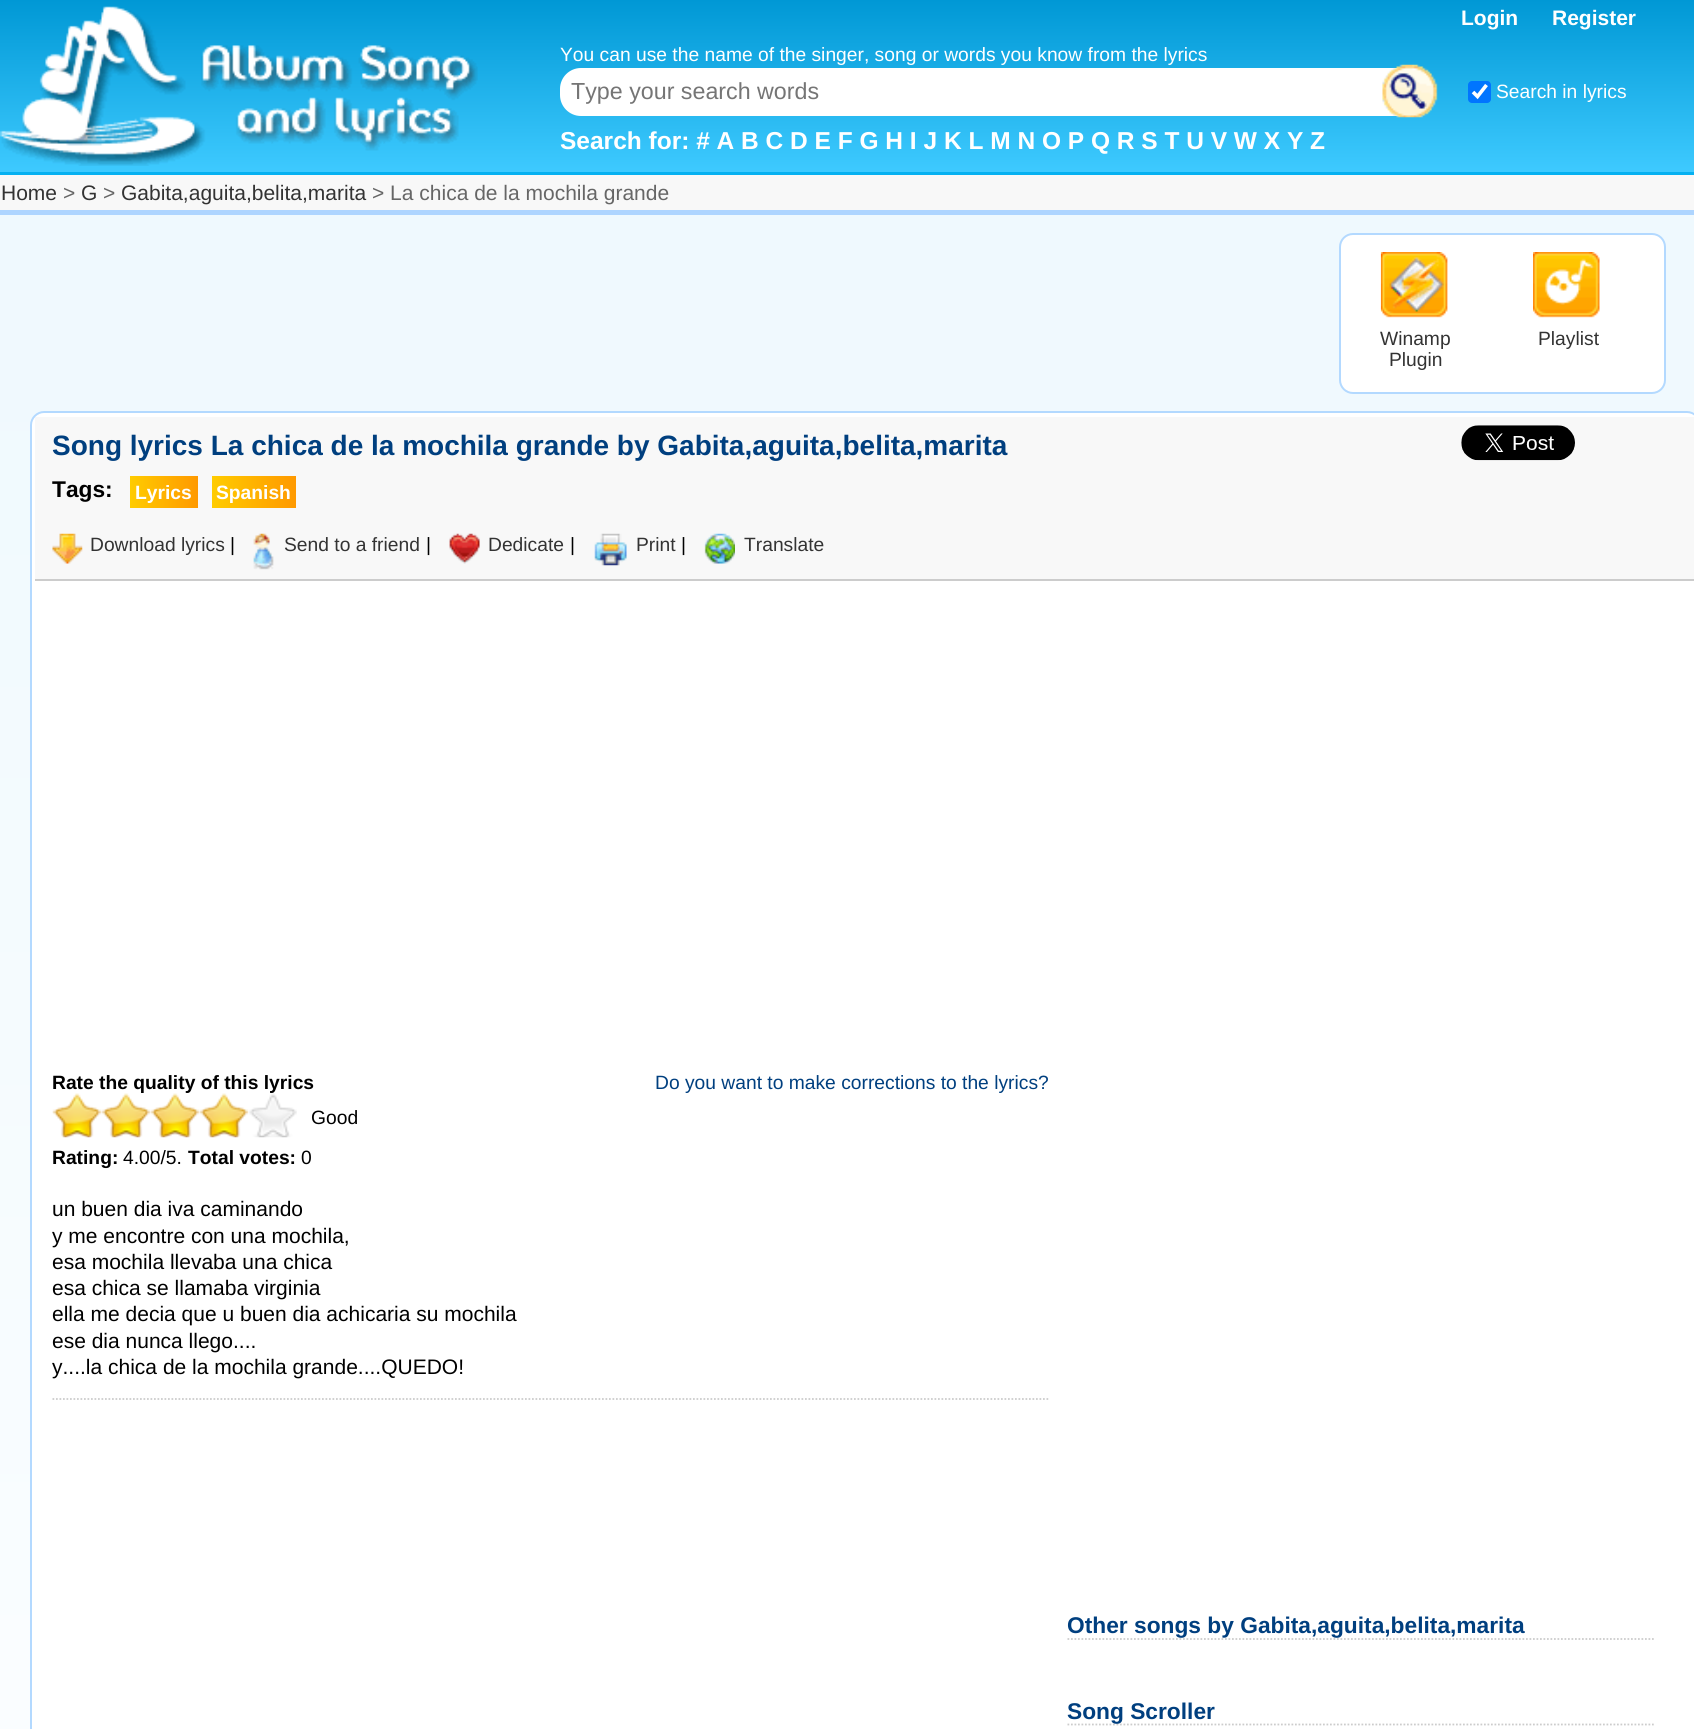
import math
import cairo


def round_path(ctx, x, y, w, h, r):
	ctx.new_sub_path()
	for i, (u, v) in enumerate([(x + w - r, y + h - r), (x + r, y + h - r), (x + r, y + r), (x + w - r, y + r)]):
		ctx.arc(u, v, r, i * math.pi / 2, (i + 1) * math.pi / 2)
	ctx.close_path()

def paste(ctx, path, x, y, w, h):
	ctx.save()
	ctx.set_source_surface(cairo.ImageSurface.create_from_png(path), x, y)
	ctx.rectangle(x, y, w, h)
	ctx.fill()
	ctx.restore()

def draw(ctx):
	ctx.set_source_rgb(1, 1, 1)
	ctx.paint()
	gradient = cairo.LinearGradient(847, 0, 847, 172)
	gradient.add_color_stop_rgba(0, 0, 0.596, 0.835, 1)
	gradient.add_color_stop_rgba(1, 0.243, 0.792, 1, 1)
	ctx.set_source(gradient)
	ctx.rectangle(0, 0, 1694, 172)
	ctx.fill()
	ctx.set_source_rgb(0.027, 0.694, 0.945)
	ctx.rectangle(0, 172, 1694, 3)
	ctx.fill()
	paste(ctx, 'media/1.png', 0, 6, 478, 160)
	ctx.select_font_face('Liberation Sans', cairo.FONT_SLANT_NORMAL, cairo.FONT_WEIGHT_BOLD)
	ctx.set_font_size(21)
	ctx.set_source_rgb(1, 1, 1)
	ctx.move_to(1461, 25)
	ctx.show_text('Login')
	ctx.move_to(1552, 25)
	ctx.show_text('Register')
	ctx.select_font_face('Liberation Sans')
	ctx.set_font_size(19.25)
	ctx.move_to(560, 61)
	ctx.show_text('You can use the name of the singer, song or words you know from the lyrics')
	round_path(ctx, 561, 69, 871, 46, 20)
	ctx.fill_preserve()
	ctx.stroke()
	ctx.set_font_size(23.25)
	ctx.set_source_rgb(0.459, 0.459, 0.459)
	ctx.move_to(571, 99)
	ctx.show_text('Type your search words')
	paste(ctx, 'media/2.png', 1382, 64, 56, 54)
	ctx.set_source_rgb(0, 0.459, 1)
	round_path(ctx, 1468, 81, 23, 22, 4)
	ctx.fill()
	ctx.new_path()
	ctx.move_to(1473, 92)
	ctx.line_to(1477.5, 96.5)
	ctx.line_to(1486.5, 85)
	ctx.set_source_rgb(1, 1, 1)
	ctx.set_line_width(3.6)
	ctx.stroke()
	ctx.set_font_size(19.25)
	ctx.move_to(1496, 98)
	ctx.show_text('Search in lyrics')
	ctx.select_font_face('Liberation Sans', cairo.FONT_SLANT_NORMAL, cairo.FONT_WEIGHT_BOLD)
	ctx.set_font_size(24.5)
	ctx.move_to(560, 149)
	ctx.show_text('Search for: # A B C D E F G H I J K L M N O P Q R S T U V W X Y Z')
	ctx.set_source_rgb(0.969, 0.969, 0.969)
	ctx.rectangle(0, 175, 1694, 35)
	ctx.fill()
	ctx.set_source_rgb(0.682, 0.835, 1)
	ctx.rectangle(0, 210, 1694, 5)
	ctx.fill()
	ctx.select_font_face('Liberation Sans')
	ctx.set_font_size(21)
	ctx.set_source_rgb(0.2, 0.2, 0.2)
	ctx.move_to(1, 200)
	ctx.show_text('Home')
	ctx.set_source_rgb(0.4, 0.4, 0.4)
	ctx.move_to(63, 200)
	ctx.show_text('>')
	ctx.set_source_rgb(0.2, 0.2, 0.2)
	ctx.move_to(81, 200)
	ctx.show_text('G')
	ctx.set_source_rgb(0.4, 0.4, 0.4)
	ctx.move_to(103, 200)
	ctx.show_text('>')
	ctx.set_source_rgb(0.2, 0.2, 0.2)
	ctx.move_to(121, 200)
	ctx.show_text('Gabita,aguita,belita,marita')
	ctx.set_source_rgb(0.4, 0.4, 0.4)
	ctx.move_to(372, 200)
	ctx.show_text('> La chica de la mochila grande')
	gradient = cairo.LinearGradient(860, 215, 860, 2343)
	gradient.add_color_stop_rgba(0, 0.937, 0.976, 0.996, 1)
	gradient.add_color_stop_rgba(1, 1, 1, 1, 1)
	ctx.set_source(gradient)
	ctx.rectangle(0, 215, 1694, 1514)
	ctx.fill()
	ctx.set_source_rgb(1, 1, 1)
	round_path(ctx, 1340, 234, 325, 159, 13)
	ctx.fill_preserve()
	ctx.set_source_rgb(0.702, 0.851, 1)
	ctx.set_line_width(2)
	ctx.stroke()
	paste(ctx, 'media/3.png', 1380, 252, 68, 66)
	ctx.set_font_size(19.25)
	ctx.set_source_rgb(0.2, 0.2, 0.2)
	ctx.move_to(1380, 345)
	ctx.show_text('Winamp')
	ctx.move_to(1389, 366)
	ctx.show_text('Plugin')
	paste(ctx, 'media/4.png', 1533, 252, 67, 66)
	ctx.move_to(1538, 345)
	ctx.show_text('Playlist')
	ctx.set_source_rgb(1, 1, 1)
	ctx.new_path()
	ctx.move_to(44, 412)
	ctx.line_to(1687, 412)
	ctx.curve_to(1694, 412, 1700, 418, 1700, 425)
	ctx.line_to(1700, 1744)
	ctx.line_to(31, 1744)
	ctx.line_to(31, 425)
	ctx.curve_to(31, 418, 37, 412, 44, 412)
	ctx.close_path()
	ctx.fill_preserve()
	ctx.set_source_rgb(0.702, 0.851, 1)
	ctx.stroke()
	ctx.set_source_rgb(0.969, 0.969, 0.969)
	ctx.rectangle(35, 417, 1659, 162)
	ctx.fill()
	ctx.set_source_rgb(0.8, 0.8, 0.8)
	ctx.rectangle(35, 579, 1659, 2)
	ctx.fill()
	ctx.select_font_face('Liberation Sans', cairo.FONT_SLANT_NORMAL, cairo.FONT_WEIGHT_BOLD)
	ctx.set_font_size(28)
	ctx.set_source_rgb(0, 0.247, 0.498)
	ctx.move_to(52, 455)
	ctx.show_text('Song lyrics La chica de la mochila grande by Gabita,aguita,belita,marita')
	ctx.set_font_size(22.75)
	ctx.set_source_rgb(0, 0, 0)
	ctx.move_to(52, 497)
	ctx.show_text('Tags:')
	gradient = cairo.LinearGradient(130, 492, 198, 492)
	gradient.add_color_stop_rgba(0, 1, 0.8, 0, 1)
	gradient.add_color_stop_rgba(1, 1, 0.6, 0, 1)
	ctx.set_source(gradient)
	ctx.rectangle(130, 476, 68, 32)
	ctx.fill()
	ctx.set_font_size(19.25)
	ctx.set_source_rgb(1, 1, 1)
	ctx.move_to(135, 499)
	ctx.show_text('Lyrics')
	gradient = cairo.LinearGradient(212, 492, 296, 492)
	gradient.add_color_stop_rgba(0, 1, 0.8, 0, 1)
	gradient.add_color_stop_rgba(1, 1, 0.6, 0, 1)
	ctx.set_source(gradient)
	ctx.rectangle(212, 476, 84, 32)
	ctx.fill()
	ctx.set_source_rgb(1, 1, 1)
	ctx.move_to(216, 499)
	ctx.show_text('Spanish')
	paste(ctx, 'media/5.png', 1461, 425, 114, 36)
	paste(ctx, 'media/6.png', 52, 533, 31, 31)
	ctx.select_font_face('Liberation Sans')
	ctx.set_source_rgb(0.2, 0.2, 0.2)
	ctx.move_to(90, 551)
	ctx.show_text('Download lyrics')
	ctx.set_source_rgb(0, 0, 0)
	ctx.move_to(230, 551)
	ctx.show_text('|')
	paste(ctx, 'media/7.png', 253, 533, 21, 37)
	ctx.set_source_rgb(0.2, 0.2, 0.2)
	ctx.move_to(284, 551)
	ctx.show_text('Send to a friend')
	ctx.set_source_rgb(0, 0, 0)
	ctx.move_to(426, 551)
	ctx.show_text('|')
	paste(ctx, 'media/8.png', 449, 533, 31, 31)
	ctx.set_source_rgb(0.2, 0.2, 0.2)
	ctx.move_to(488, 551)
	ctx.show_text('Dedicate')
	ctx.set_source_rgb(0, 0, 0)
	ctx.move_to(570, 551)
	ctx.show_text('|')
	paste(ctx, 'media/9.png', 594, 533, 33, 33)
	ctx.set_source_rgb(0.2, 0.2, 0.2)
	ctx.move_to(636, 551)
	ctx.show_text('Print')
	ctx.set_source_rgb(0, 0, 0)
	ctx.move_to(681, 551)
	ctx.show_text('|')
	paste(ctx, 'media/10.png', 704, 533, 31, 31)
	ctx.set_source_rgb(0.2, 0.2, 0.2)
	ctx.move_to(744, 551)
	ctx.show_text('Translate')
	ctx.select_font_face('Liberation Sans', cairo.FONT_SLANT_NORMAL, cairo.FONT_WEIGHT_BOLD)
	ctx.set_source_rgb(0, 0, 0)
	ctx.move_to(52, 1089)
	ctx.show_text('Rate the quality of this lyrics')
	paste(ctx, 'media/11.png', 52, 1093, 50, 45)
	paste(ctx, 'media/12.png', 101, 1093, 50, 45)
	paste(ctx, 'media/12.png', 150, 1093, 50, 45)
	paste(ctx, 'media/12.png', 199, 1093, 50, 45)
	paste(ctx, 'media/13.png', 249, 1093, 48, 45)
	ctx.select_font_face('Liberation Sans')
	ctx.move_to(311, 1124)
	ctx.show_text('Good')
	ctx.select_font_face('Liberation Sans', cairo.FONT_SLANT_NORMAL, cairo.FONT_WEIGHT_BOLD)
	ctx.move_to(52, 1164)
	ctx.show_text('Rating:')
	ctx.select_font_face('Liberation Sans')
	ctx.move_to(123, 1164)
	ctx.show_text('4.00/5.')
	ctx.select_font_face('Liberation Sans', cairo.FONT_SLANT_NORMAL, cairo.FONT_WEIGHT_BOLD)
	ctx.move_to(188, 1164)
	ctx.show_text('Total votes:')
	ctx.select_font_face('Liberation Sans')
	ctx.move_to(301, 1164)
	ctx.show_text('0')
	ctx.set_source_rgb(0, 0.247, 0.498)
	ctx.move_to(655, 1089)
	ctx.show_text('Do you want to make corrections to the lyrics?')
	ctx.new_path()
	ctx.move_to(52.5, 1399)
	ctx.line_to(1050, 1399)
	ctx.set_source_rgb(0.8, 0.8, 0.8)
	ctx.set_line_width(1.8)
	ctx.set_dash([1.75, 1.75])
	ctx.stroke()
	ctx.set_font_size(21)
	ctx.set_source_rgb(0, 0, 0)
	for x, y, s in [
		(52, 1216, 'un buen dia iva caminando'),
		(52, 1243, 'y me encontre con una mochila,'),
		(52, 1269, 'esa mochila llevaba una chica'),
		(52, 1295, 'esa chica se llamaba virginia'),
		(52, 1321, 'ella me decia que u buen dia achicaria su mochila'),
		(52, 1348, 'ese dia nunca llego....'),
		(52, 1374, 'y....la chica de la mochila grande....QUEDO!'),
	]:
		ctx.move_to(x, y)
		ctx.show_text(s)
	ctx.new_path()
	ctx.move_to(1067.5, 1639)
	ctx.line_to(1655.5, 1639)
	ctx.set_source_rgb(0.8, 0.8, 0.8)
	ctx.stroke()
	ctx.select_font_face('Liberation Sans', cairo.FONT_SLANT_NORMAL, cairo.FONT_WEIGHT_BOLD)
	ctx.set_font_size(22.75)
	ctx.set_source_rgb(0, 0.247, 0.498)
	ctx.move_to(1067, 1633)
	ctx.show_text('Other songs by Gabita,aguita,belita,marita')
	ctx.new_path()
	ctx.move_to(1067.5, 1724.5)
	ctx.line_to(1655.5, 1724.5)
	ctx.set_source_rgb(0.8, 0.8, 0.8)
	ctx.stroke()
	ctx.set_source_rgb(0, 0.247, 0.498)
	ctx.move_to(1067, 1719)
	ctx.show_text('Song Scroller')


surface = cairo.ImageSurface(cairo.FORMAT_RGB24, 1694, 1729)
ctx = cairo.Context(surface)
options = cairo.FontOptions()
options.set_hint_metrics(cairo.HINT_METRICS_OFF)
options.set_hint_style(cairo.HINT_STYLE_NONE)
ctx.set_font_options(options)
ctx.set_miter_limit(4)
draw(ctx)
surface.write_to_png('image.png')
